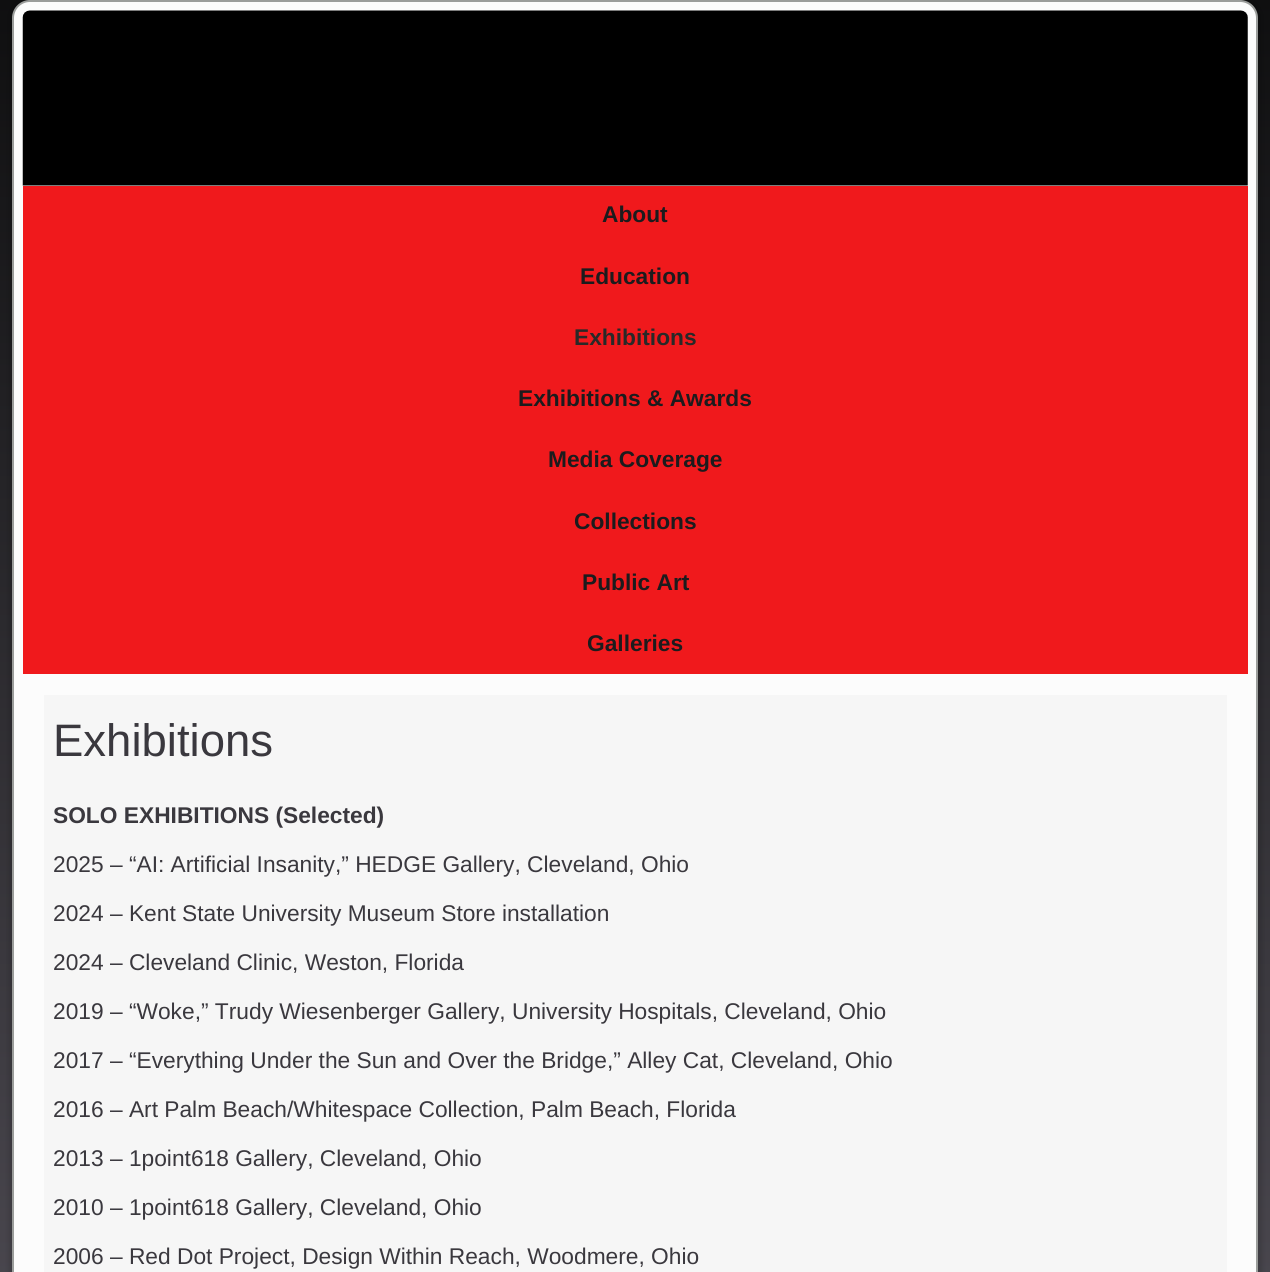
import math
import cairo


def round_path(ctx, x, y, w, h, r):
	ctx.new_sub_path()
	for i, (u, v) in enumerate([(x + w - r, y + h - r), (x + r, y + h - r), (x + r, y + r), (x + w - r, y + r)]):
		ctx.arc(u, v, r, i * math.pi / 2, (i + 1) * math.pi / 2)
	ctx.close_path()

def blur_box(ctx, x, y, w, h, r, blur, alpha):
	ctx.push_group_with_content(cairo.CONTENT_ALPHA)
	ctx.set_operator(cairo.OPERATOR_SOURCE)
	for i in range(15, -16, -2):
		e = blur * i / 6
		if min(w, h) + 2 * e > 0:
			ctx.set_source_rgba(0, 0, 0, alpha * math.erfc((i - 1) / 8.5) / 2)
			round_path(ctx, x - e, y - e, w + 2 * e, h + 2 * e, max(0, min(r + e + blur * .6, min(w, h) / 2 + e)))
			ctx.fill()
	ctx.mask(ctx.pop_group())

def paste(ctx, path, x, y, w, h):
	ctx.save()
	ctx.set_source_surface(cairo.ImageSurface.create_from_png(path), x, y)
	ctx.rectangle(x, y, w, h)
	ctx.fill()
	ctx.restore()

def draw(ctx):
	ctx.set_source_rgb(1, 1, 1)
	ctx.paint()
	gradient = cairo.LinearGradient(635, 0, 635, 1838)
	gradient.add_color_stop_rgba(0, 0.059, 0.059, 0.063, 1)
	gradient.add_color_stop_rgba(1, 0.384, 0.369, 0.408, 1)
	ctx.set_source(gradient)
	ctx.rectangle(0, 0, 1270, 1272)
	ctx.fill()
	ctx.set_source_rgb(0, 0, 0)
	blur_box(ctx, 9, -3, 1253, 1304, 21, 2.5, 0.15)
	ctx.set_source_rgb(0.988, 0.988, 0.988)
	round_path(ctx, 13, 1, 1244, 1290, 17)
	ctx.fill_preserve()
	ctx.set_source_rgb(0.608, 0.616, 0.608)
	ctx.stroke()
	paste(ctx, 'media/1.png', 22, 10, 1226, 176)
	ctx.set_source_rgb(0.941, 0.098, 0.11)
	ctx.rectangle(23, 186, 1225, 488)
	ctx.fill()
	ctx.select_font_face('Liberation Sans', cairo.FONT_SLANT_NORMAL, cairo.FONT_WEIGHT_BOLD)
	ctx.set_font_size(22.75)
	ctx.set_source_rgb(0.11, 0.106, 0.114)
	ctx.move_to(602, 222)
	ctx.show_text('About')
	ctx.move_to(580, 284)
	ctx.show_text('Education')
	ctx.set_source_rgb(0.157, 0.161, 0.157)
	ctx.move_to(574, 345)
	ctx.show_text('Exhibitions')
	ctx.set_source_rgb(0.11, 0.106, 0.114)
	for x, y, s in [
		(518, 406, 'Exhibitions & Awards'),
		(548, 467, 'Media Coverage'),
		(574, 529, 'Collections'),
		(582, 590, 'Public Art'),
		(587, 651, 'Galleries'),
	]:
		ctx.move_to(x, y)
		ctx.show_text(s)
	ctx.set_source_rgb(0.961, 0.961, 0.961)
	ctx.rectangle(44, 695, 1183, 577)
	ctx.fill()
	ctx.select_font_face('Liberation Sans')
	ctx.set_font_size(45.5)
	ctx.set_source_rgb(0.227, 0.22, 0.243)
	ctx.move_to(53, 756)
	ctx.show_text('Exhibitions')
	ctx.select_font_face('Liberation Sans', cairo.FONT_SLANT_NORMAL, cairo.FONT_WEIGHT_BOLD)
	ctx.set_font_size(22.75)
	ctx.move_to(53, 823)
	ctx.show_text('SOLO EXHIBITIONS (Selected)')
	ctx.select_font_face('Liberation Sans')
	for x, y, s in [
		(53, 872, '2025 – “AI: Artificial Insanity,” HEDGE Gallery, Cleveland, Ohio'),
		(53, 921, '2024 – Kent State University Museum Store installation'),
		(53, 970, '2024 – Cleveland Clinic, Weston, Florida'),
		(53, 1019, '2019 – “Woke,” Trudy Wiesenberger Gallery, University Hospitals, Cleveland, Ohio'),
		(53, 1068, '2017 – “Everything Under the Sun and Over the Bridge,” Alley Cat, Cleveland, Ohio'),
		(53, 1117, '2016 – Art Palm Beach/Whitespace Collection, Palm Beach, Florida'),
		(53, 1166, '2013 – 1point618 Gallery, Cleveland, Ohio'),
		(53, 1215, '2010 – 1point618 Gallery, Cleveland, Ohio'),
		(53, 1264, '2006 – Red Dot Project, Design Within Reach, Woodmere, Ohio'),
	]:
		ctx.move_to(x, y)
		ctx.show_text(s)


surface = cairo.ImageSurface(cairo.FORMAT_RGB24, 1270, 1272)
ctx = cairo.Context(surface)
options = cairo.FontOptions()
options.set_hint_metrics(cairo.HINT_METRICS_OFF)
options.set_hint_style(cairo.HINT_STYLE_NONE)
ctx.set_font_options(options)
ctx.set_miter_limit(4)
draw(ctx)
surface.write_to_png('image.png')
